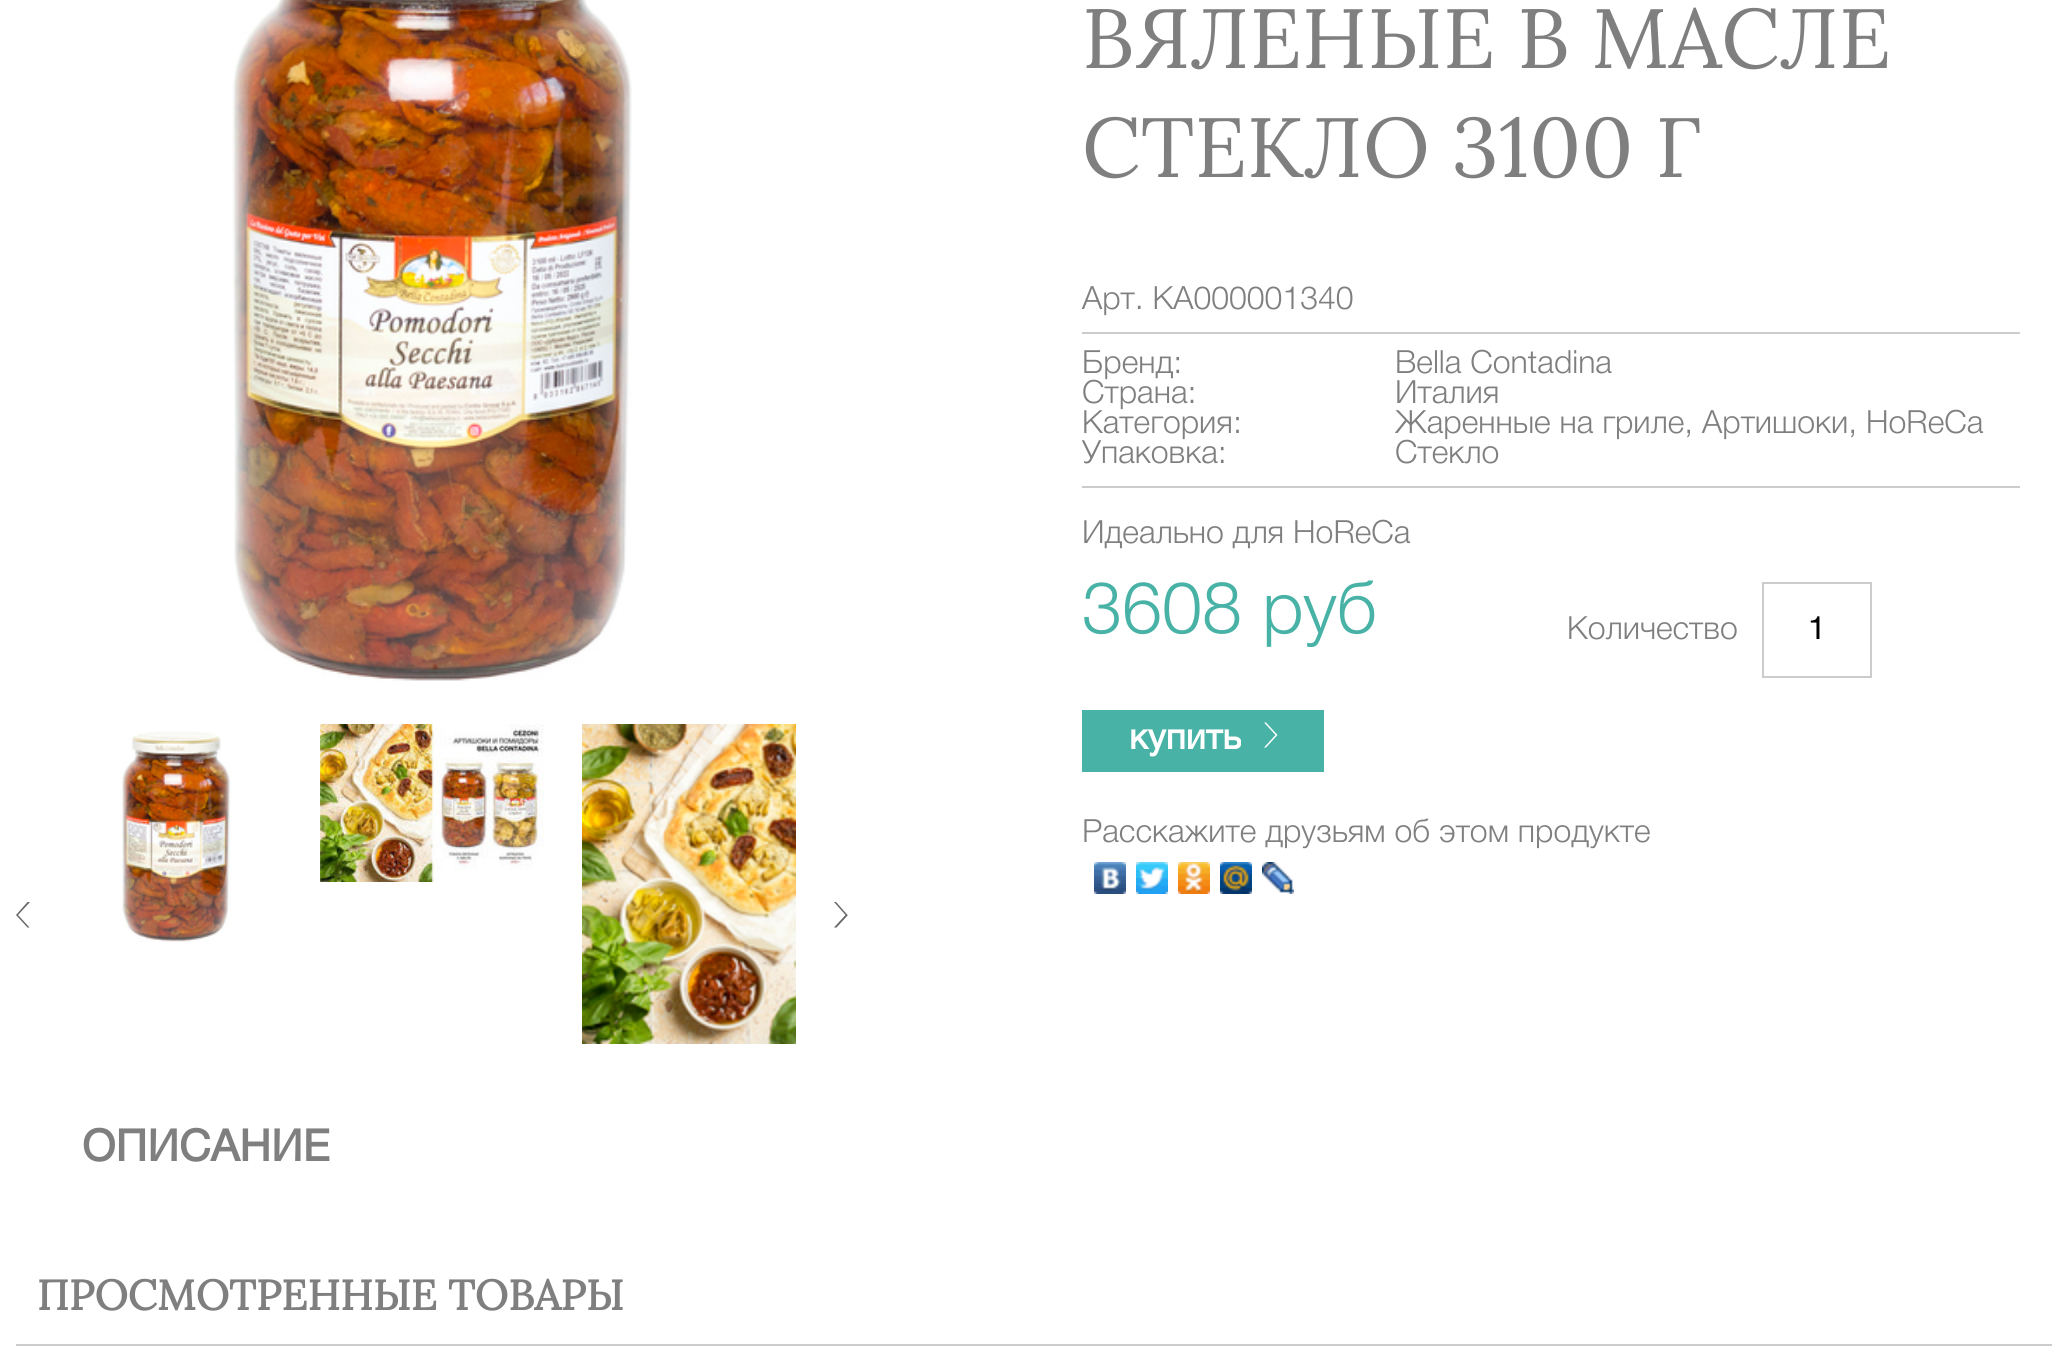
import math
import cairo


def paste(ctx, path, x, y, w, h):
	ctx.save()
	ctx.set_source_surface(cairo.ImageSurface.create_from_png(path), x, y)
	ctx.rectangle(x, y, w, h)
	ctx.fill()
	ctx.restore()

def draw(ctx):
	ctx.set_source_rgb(1, 1, 1)
	ctx.paint()
	ctx.select_font_face('Lora')
	ctx.set_font_size(84)
	ctx.set_source_rgb(0.498, 0.498, 0.498)
	ctx.move_to(1082, 68)
	ctx.show_text('ВЯЛЕНЫЕ В МАСЛЕ')
	ctx.move_to(1082, 177)
	ctx.show_text('СТЕКЛО 3100 Г')
	ctx.select_font_face('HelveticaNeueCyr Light')
	ctx.set_font_size(32)
	ctx.move_to(1082, 309)
	ctx.show_text('Арт. КА000001340')
	ctx.set_source_rgb(0.8, 0.8, 0.8)
	ctx.rectangle(1082, 332, 938, 2)
	ctx.fill()
	ctx.rectangle(1082, 486, 938, 2)
	ctx.fill()
	ctx.set_source_rgb(0.498, 0.498, 0.498)
	for x, y, s in [
		(1082, 373, 'Бренд:'),
		(1395, 373, 'Bella Contadina'),
		(1082, 403, 'Страна:'),
		(1395, 403, 'Италия'),
		(1082, 433, 'Категория:'),
		(1395, 433, 'Жаренные на гриле, Артишоки, HoReCa'),
		(1082, 463, 'Упаковка:'),
		(1395, 463, 'Стекло'),
		(1082, 543, 'Идеально для HoReCa'),
	]:
		ctx.move_to(x, y)
		ctx.show_text(s)
	ctx.set_font_size(72)
	ctx.set_source_rgb(0.278, 0.698, 0.647)
	ctx.move_to(1082, 633)
	ctx.show_text('3608 руб')
	ctx.set_font_size(32)
	ctx.set_source_rgb(0.498, 0.498, 0.498)
	ctx.move_to(1567, 639)
	ctx.show_text('Количество')
	ctx.rectangle(1763, 583, 108, 94)
	ctx.set_source_rgb(0.8, 0.8, 0.8)
	ctx.stroke()
	ctx.select_font_face('HelveticaNeueCyr')
	ctx.set_source_rgb(0, 0, 0)
	ctx.move_to(1808, 639)
	ctx.show_text('1')
	ctx.set_source_rgb(0.278, 0.698, 0.647)
	ctx.rectangle(1082, 710, 242, 62)
	ctx.fill()
	ctx.select_font_face('HelveticaNeueCyr', cairo.FONT_SLANT_NORMAL, cairo.FONT_WEIGHT_BOLD)
	ctx.set_font_size(36)
	ctx.set_source_rgb(1, 1, 1)
	ctx.move_to(1129, 749)
	ctx.show_text('купить')
	ctx.new_path()
	ctx.move_to(1266, 722.5)
	ctx.line_to(1277.5, 735)
	ctx.line_to(1275.5, 735)
	ctx.line_to(1264, 722.5)
	ctx.close_path()
	ctx.move_to(1275.5, 735)
	ctx.line_to(1264, 747.5)
	ctx.line_to(1266, 747.5)
	ctx.line_to(1277.5, 735)
	ctx.close_path()
	ctx.fill()
	ctx.select_font_face('HelveticaNeueCyr Light')
	ctx.set_font_size(32)
	ctx.set_source_rgb(0.498, 0.498, 0.498)
	ctx.move_to(1082, 842)
	ctx.show_text('Расскажите друзьям об этом продукте')
	paste(ctx, 'media/1.png', 1094, 862, 32, 32)
	paste(ctx, 'media/2.png', 1136, 862, 32, 32)
	paste(ctx, 'media/3.png', 1178, 862, 32, 32)
	paste(ctx, 'media/4.png', 1220, 862, 32, 32)
	paste(ctx, 'media/5.png', 1262, 862, 32, 32)
	paste(ctx, 'media/6.png', 232, 0, 400, 681)
	paste(ctx, 'media/7.png', 121, 731, 110, 211)
	paste(ctx, 'media/8.png', 320, 724, 224, 158)
	paste(ctx, 'media/9.png', 582, 724, 214, 320)
	ctx.set_source_rgb(0.4, 0.4, 0.4)
	ctx.new_path()
	ctx.move_to(27.5, 902)
	ctx.line_to(16, 915)
	ctx.line_to(18, 915)
	ctx.line_to(30, 902)
	ctx.close_path()
	ctx.move_to(18, 915)
	ctx.line_to(29.5, 927.5)
	ctx.line_to(27.5, 927.5)
	ctx.line_to(16, 915)
	ctx.close_path()
	ctx.fill()
	ctx.new_path()
	ctx.move_to(836, 902)
	ctx.line_to(847.5, 915)
	ctx.line_to(845.5, 915)
	ctx.line_to(834, 902)
	ctx.close_path()
	ctx.move_to(845.5, 915)
	ctx.line_to(834, 927.5)
	ctx.line_to(836.5, 927.5)
	ctx.line_to(848, 915)
	ctx.close_path()
	ctx.fill()
	ctx.select_font_face('HelveticaNeueCyr', cairo.FONT_SLANT_NORMAL, cairo.FONT_WEIGHT_BOLD)
	ctx.set_font_size(44)
	ctx.set_source_rgb(0.498, 0.498, 0.498)
	ctx.move_to(82, 1161)
	ctx.show_text('ОПИСАНИЕ')
	ctx.set_source_rgb(0.8, 0.8, 0.8)
	ctx.rectangle(16, 1344, 2036, 2)
	ctx.fill()
	ctx.select_font_face('Lora', cairo.FONT_SLANT_NORMAL, cairo.FONT_WEIGHT_BOLD)
	ctx.set_font_size(42)
	ctx.set_source_rgb(0.498, 0.498, 0.498)
	ctx.move_to(37, 1310)
	ctx.show_text('ПРОСМОТРЕННЫЕ ТОВАРЫ')


surface = cairo.ImageSurface(cairo.FORMAT_RGB24, 2067, 1347)
ctx = cairo.Context(surface)
options = cairo.FontOptions()
options.set_hint_metrics(cairo.HINT_METRICS_OFF)
options.set_hint_style(cairo.HINT_STYLE_NONE)
ctx.set_font_options(options)
ctx.set_miter_limit(4)
draw(ctx)
surface.write_to_png('image.png')
